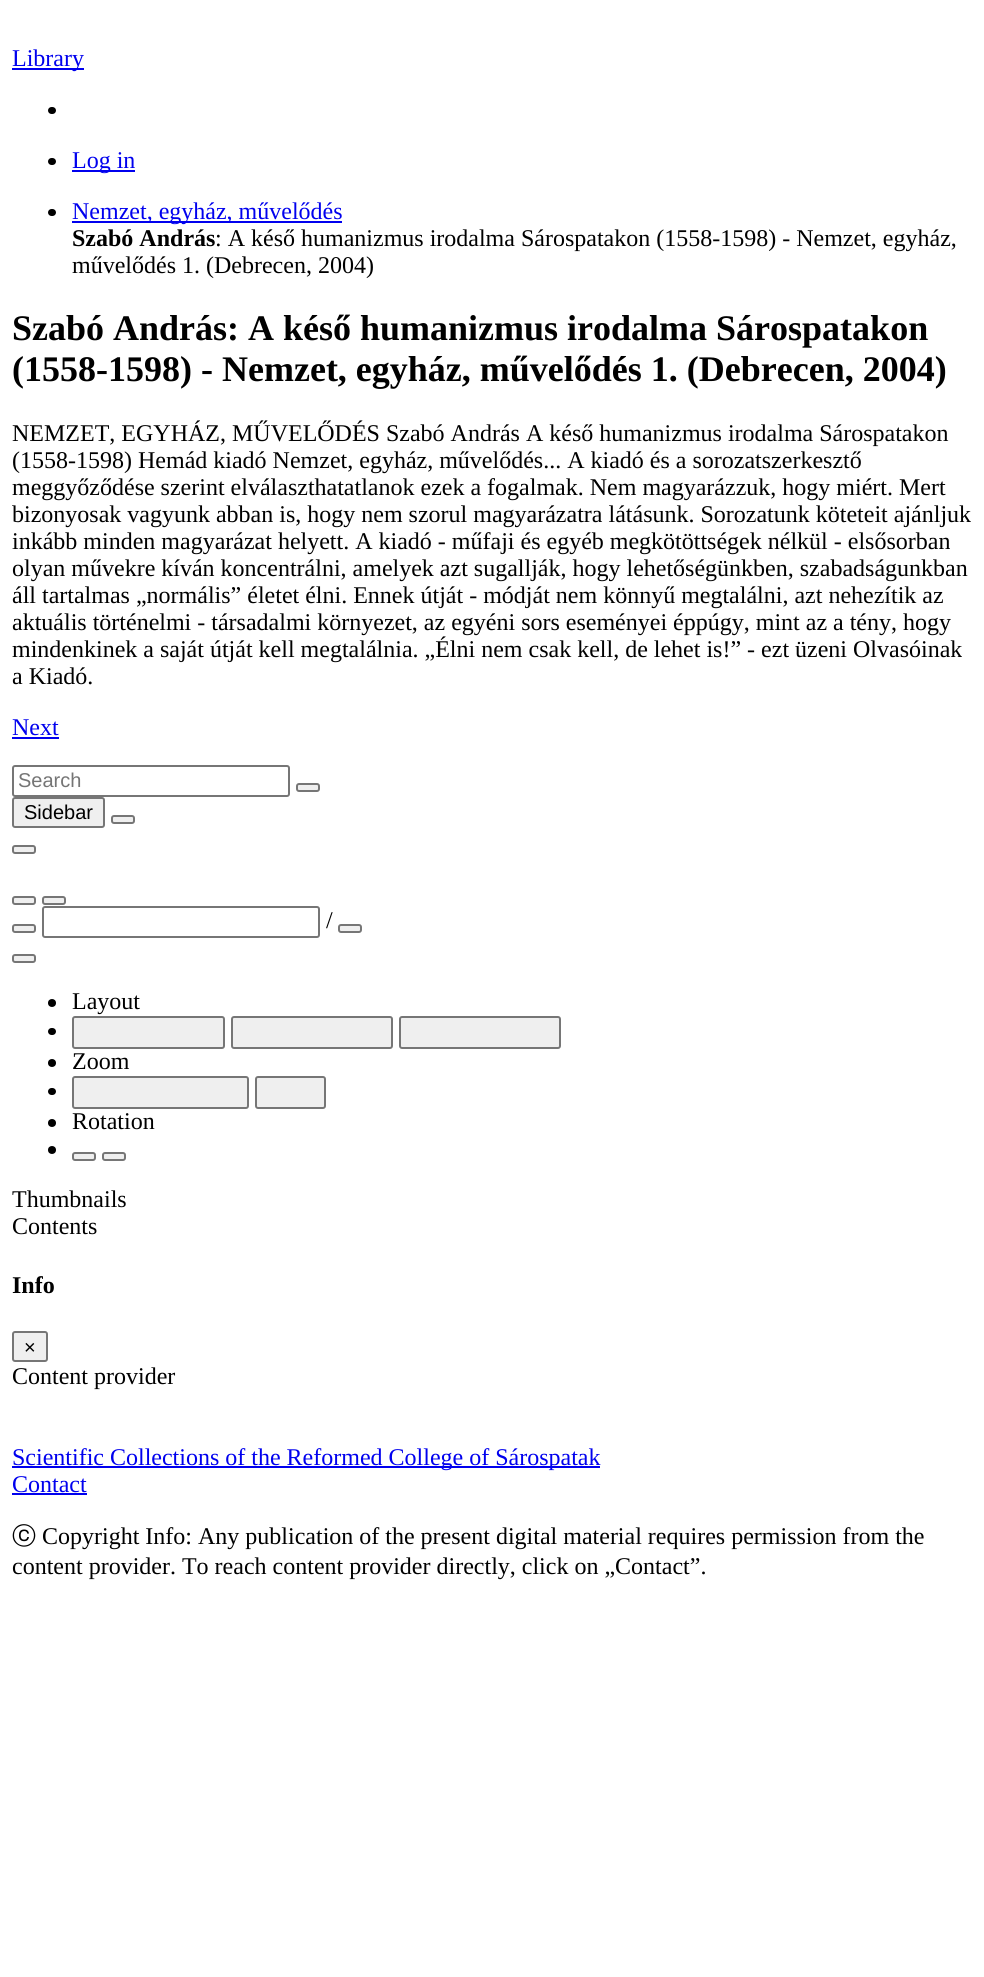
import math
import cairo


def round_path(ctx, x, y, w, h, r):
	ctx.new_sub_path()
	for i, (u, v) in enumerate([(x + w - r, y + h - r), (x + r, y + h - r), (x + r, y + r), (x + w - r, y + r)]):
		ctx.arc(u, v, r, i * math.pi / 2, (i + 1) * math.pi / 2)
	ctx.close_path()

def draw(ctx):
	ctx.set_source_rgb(1, 1, 1)
	ctx.paint()
	ctx.set_source_rgb(0, 0, 0.933)
	ctx.rectangle(12, 68, 72, 2)
	ctx.fill()
	ctx.select_font_face('Liberation Serif')
	ctx.set_font_size(24)
	ctx.move_to(12, 66)
	ctx.show_text('Library')
	ctx.set_source_rgb(0, 0, 0)
	round_path(ctx, 48, 107, 8, 7, 3.5)
	ctx.fill()
	round_path(ctx, 48, 158, 8, 7, 3.5)
	ctx.fill()
	ctx.set_source_rgb(0, 0, 0.933)
	ctx.rectangle(72, 170, 63, 2)
	ctx.fill()
	ctx.move_to(72, 168)
	ctx.show_text('Log in')
	ctx.set_source_rgb(0, 0, 0)
	round_path(ctx, 48, 209, 8, 7, 3.5)
	ctx.fill()
	ctx.set_source_rgb(0, 0, 0.933)
	ctx.rectangle(72, 221, 270, 2)
	ctx.fill()
	ctx.move_to(72, 219)
	ctx.show_text('Nemzet, egyház, művelődés')
	ctx.select_font_face('Liberation Serif', cairo.FONT_SLANT_NORMAL, cairo.FONT_WEIGHT_BOLD)
	ctx.set_source_rgb(0, 0, 0)
	ctx.move_to(72, 246)
	ctx.show_text('Szabó András')
	ctx.select_font_face('Liberation Serif')
	ctx.move_to(215, 246)
	ctx.show_text(': A késő humanizmus irodalma Sárospatakon (1558-1598) - Nemzet, egyház,')
	ctx.move_to(72, 273)
	ctx.show_text('művelődés 1. (Debrecen, 2004)')
	ctx.select_font_face('Liberation Serif', cairo.FONT_SLANT_NORMAL, cairo.FONT_WEIGHT_BOLD)
	ctx.set_font_size(36)
	ctx.move_to(12, 340)
	ctx.show_text('Szabó András: A késő humanizmus irodalma Sárospatakon')
	ctx.move_to(12, 381)
	ctx.show_text('(1558-1598) - Nemzet, egyház, művelődés 1. (Debrecen, 2004)')
	ctx.select_font_face('Liberation Serif')
	ctx.set_font_size(24)
	for x, y, s in [
		(12, 441, 'NEMZET, EGYHÁZ, MŰVELŐDÉS Szabó András A késő humanizmus irodalma Sárospatakon'),
		(12, 468, '(1558-1598) Hemád kiadó Nemzet, egyház, művelődés... A kiadó és a sorozatszerkesztő'),
		(12, 495, 'meggyőződése szerint elválaszthatatlanok ezek a fogalmak. Nem magyarázzuk, hogy miért. Mert'),
		(12, 522, 'bizonyosak vagyunk abban is, hogy nem szorul magyarázatra látásunk. Sorozatunk köteteit ajánljuk'),
		(12, 549, 'inkább minden magyarázat helyett. A kiadó - műfaji és egyéb megkötöttségek nélkül - elsősorban'),
		(12, 576, 'olyan művekre kíván koncentrálni, amelyek azt sugallják, hogy lehetőségünkben, szabadságunkban'),
		(12, 603, 'áll tartalmas „normális” életet élni. Ennek útját - módját nem könnyű megtalálni, azt nehezítik az'),
		(12, 630, 'aktuális történelmi - társadalmi környezet, az egyéni sors eseményei éppúgy, mint az a tény, hogy'),
		(12, 657, 'mindenkinek a saját útját kell megtalálnia. „Élni nem csak kell, de lehet is!” - ezt üzeni Olvasóinak'),
		(12, 684, 'a Kiadó.'),
	]:
		ctx.move_to(x, y)
		ctx.show_text(s)
	ctx.set_source_rgb(0, 0, 0.933)
	ctx.move_to(12, 735)
	ctx.show_text('Next')
	ctx.rectangle(12, 737, 47, 2)
	ctx.fill()
	round_path(ctx, 13, 766, 276, 30, 2)
	ctx.set_source_rgb(0.463, 0.463, 0.463)
	ctx.stroke()
	ctx.select_font_face('Liberation Sans')
	ctx.set_font_size(20)
	ctx.set_source_rgb(0.459, 0.459, 0.459)
	ctx.move_to(18, 787)
	ctx.show_text('Search')
	ctx.set_source_rgb(0.937, 0.937, 0.937)
	round_path(ctx, 297, 784, 22, 7, 2)
	ctx.fill_preserve()
	ctx.set_source_rgb(0.463, 0.463, 0.463)
	ctx.stroke()
	ctx.set_source_rgb(0.937, 0.937, 0.937)
	round_path(ctx, 13, 798, 91, 29, 2)
	ctx.fill_preserve()
	ctx.set_source_rgb(0.463, 0.463, 0.463)
	ctx.stroke()
	ctx.set_source_rgb(0, 0, 0)
	ctx.move_to(24, 819)
	ctx.show_text('Sidebar')
	ctx.set_source_rgb(0.937, 0.937, 0.937)
	round_path(ctx, 112, 816, 22, 7, 2)
	ctx.fill_preserve()
	ctx.set_source_rgb(0.463, 0.463, 0.463)
	ctx.stroke()
	ctx.set_source_rgb(0.937, 0.937, 0.937)
	round_path(ctx, 13, 846, 22, 7, 2)
	ctx.fill_preserve()
	ctx.set_source_rgb(0.463, 0.463, 0.463)
	ctx.stroke()
	ctx.set_source_rgb(0.937, 0.937, 0.937)
	round_path(ctx, 13, 897, 22, 7, 2)
	ctx.fill_preserve()
	ctx.set_source_rgb(0.463, 0.463, 0.463)
	ctx.stroke()
	ctx.set_source_rgb(0.937, 0.937, 0.937)
	round_path(ctx, 43, 897, 22, 7, 2)
	ctx.fill_preserve()
	ctx.set_source_rgb(0.463, 0.463, 0.463)
	ctx.stroke()
	ctx.set_source_rgb(0.937, 0.937, 0.937)
	round_path(ctx, 13, 925, 22, 7, 2)
	ctx.fill_preserve()
	ctx.set_source_rgb(0.463, 0.463, 0.463)
	ctx.stroke()
	round_path(ctx, 43, 907, 276, 30, 2)
	ctx.stroke()
	ctx.select_font_face('Liberation Serif')
	ctx.set_font_size(24)
	ctx.set_source_rgb(0, 0, 0)
	ctx.move_to(326, 928)
	ctx.show_text('/')
	ctx.set_source_rgb(0.937, 0.937, 0.937)
	round_path(ctx, 339, 925, 22, 7, 2)
	ctx.fill_preserve()
	ctx.set_source_rgb(0.463, 0.463, 0.463)
	ctx.stroke()
	ctx.set_source_rgb(0.937, 0.937, 0.937)
	round_path(ctx, 13, 955, 22, 7, 2)
	ctx.fill_preserve()
	ctx.set_source_rgb(0.463, 0.463, 0.463)
	ctx.stroke()
	ctx.set_source_rgb(0, 0, 0)
	ctx.arc(52, 1003, 4, 0, 2 * math.pi)
	ctx.fill()
	ctx.move_to(72, 1009)
	ctx.show_text('Layout')
	round_path(ctx, 48, 1028, 8, 7, 3.5)
	ctx.fill()
	ctx.set_source_rgb(0.937, 0.937, 0.937)
	round_path(ctx, 73, 1017, 151, 31, 2)
	ctx.fill_preserve()
	ctx.set_source_rgb(0.463, 0.463, 0.463)
	ctx.stroke()
	ctx.set_source_rgb(0.937, 0.937, 0.937)
	round_path(ctx, 232, 1017, 160, 31, 2)
	ctx.fill_preserve()
	ctx.set_source_rgb(0.463, 0.463, 0.463)
	ctx.stroke()
	ctx.set_source_rgb(0.937, 0.937, 0.937)
	round_path(ctx, 400, 1017, 160, 31, 2)
	ctx.fill_preserve()
	ctx.set_source_rgb(0.463, 0.463, 0.463)
	ctx.stroke()
	ctx.set_source_rgb(0, 0, 0)
	ctx.arc(52, 1063, 4, 0, 2 * math.pi)
	ctx.fill()
	ctx.move_to(72, 1069)
	ctx.show_text('Zoom')
	round_path(ctx, 48, 1088, 8, 7, 3.5)
	ctx.fill()
	ctx.set_source_rgb(0.937, 0.937, 0.937)
	round_path(ctx, 73, 1077, 175, 31, 2)
	ctx.fill_preserve()
	ctx.set_source_rgb(0.463, 0.463, 0.463)
	ctx.stroke()
	ctx.set_source_rgb(0.937, 0.937, 0.937)
	round_path(ctx, 256, 1077, 69, 31, 2)
	ctx.fill_preserve()
	ctx.set_source_rgb(0.463, 0.463, 0.463)
	ctx.stroke()
	ctx.set_source_rgb(0, 0, 0)
	ctx.arc(52, 1123, 4, 0, 2 * math.pi)
	ctx.fill()
	ctx.move_to(72, 1129)
	ctx.show_text('Rotation')
	ctx.new_path()
	ctx.arc(52, 1150, 4, 0, 2 * math.pi)
	ctx.fill()
	ctx.set_source_rgb(0.937, 0.937, 0.937)
	round_path(ctx, 73, 1153, 22, 7, 2)
	ctx.fill_preserve()
	ctx.set_source_rgb(0.463, 0.463, 0.463)
	ctx.stroke()
	ctx.set_source_rgb(0.937, 0.937, 0.937)
	round_path(ctx, 103, 1153, 22, 7, 2)
	ctx.fill_preserve()
	ctx.set_source_rgb(0.463, 0.463, 0.463)
	ctx.stroke()
	ctx.set_source_rgb(0, 0, 0)
	ctx.move_to(12, 1207)
	ctx.show_text('Thumbnails')
	ctx.move_to(12, 1234)
	ctx.show_text('Contents')
	ctx.select_font_face('Liberation Serif', cairo.FONT_SLANT_NORMAL, cairo.FONT_WEIGHT_BOLD)
	ctx.move_to(12, 1293)
	ctx.show_text('Info')
	ctx.set_source_rgb(0.937, 0.937, 0.937)
	round_path(ctx, 13, 1332, 34, 29, 2)
	ctx.fill_preserve()
	ctx.set_source_rgb(0.463, 0.463, 0.463)
	ctx.stroke()
	ctx.select_font_face('Liberation Sans')
	ctx.set_font_size(20)
	ctx.set_source_rgb(0, 0, 0)
	ctx.move_to(24, 1354)
	ctx.show_text('×')
	ctx.select_font_face('Liberation Serif')
	ctx.set_font_size(24)
	ctx.move_to(12, 1384)
	ctx.show_text('Content provider')
	ctx.set_source_rgb(0, 0, 0.933)
	ctx.rectangle(12, 1466, 588, 2)
	ctx.fill()
	ctx.move_to(12, 1465)
	ctx.show_text('Scientific Collections of the Reformed College of Sárospatak')
	ctx.move_to(12, 1492)
	ctx.show_text('Contact')
	ctx.rectangle(12, 1493, 75, 2)
	ctx.fill()
	ctx.select_font_face('WenQuanYi Zen Hei Medium')
	ctx.set_source_rgb(0, 0, 0)
	ctx.move_to(12, 1544)
	ctx.show_text('ⓒ')
	ctx.select_font_face('Liberation Serif')
	ctx.move_to(42, 1544)
	ctx.show_text('Copyright Info: Any publication of the present digital material requires permission from the')
	ctx.move_to(12, 1574)
	ctx.show_text('content provider. To reach content provider directly, click on „Contact”.')


surface = cairo.ImageSurface(cairo.FORMAT_RGB24, 984, 1977)
ctx = cairo.Context(surface)
options = cairo.FontOptions()
options.set_hint_metrics(cairo.HINT_METRICS_OFF)
options.set_hint_style(cairo.HINT_STYLE_NONE)
ctx.set_font_options(options)
ctx.set_miter_limit(4)
draw(ctx)
surface.write_to_png('image.png')
